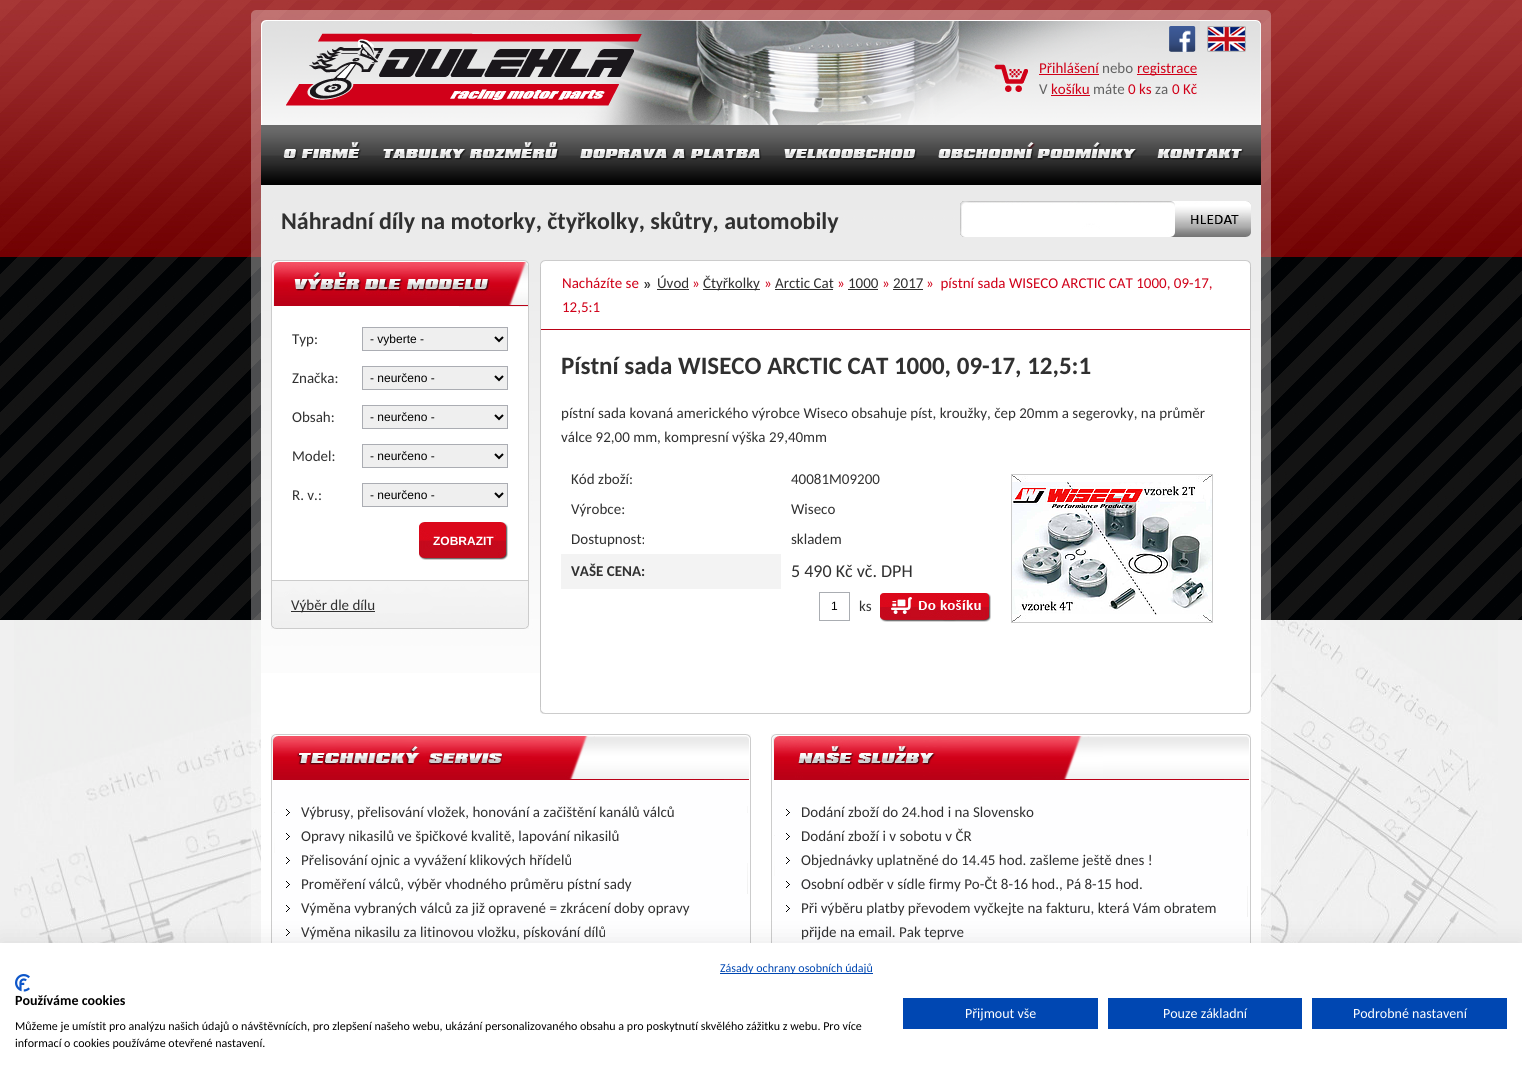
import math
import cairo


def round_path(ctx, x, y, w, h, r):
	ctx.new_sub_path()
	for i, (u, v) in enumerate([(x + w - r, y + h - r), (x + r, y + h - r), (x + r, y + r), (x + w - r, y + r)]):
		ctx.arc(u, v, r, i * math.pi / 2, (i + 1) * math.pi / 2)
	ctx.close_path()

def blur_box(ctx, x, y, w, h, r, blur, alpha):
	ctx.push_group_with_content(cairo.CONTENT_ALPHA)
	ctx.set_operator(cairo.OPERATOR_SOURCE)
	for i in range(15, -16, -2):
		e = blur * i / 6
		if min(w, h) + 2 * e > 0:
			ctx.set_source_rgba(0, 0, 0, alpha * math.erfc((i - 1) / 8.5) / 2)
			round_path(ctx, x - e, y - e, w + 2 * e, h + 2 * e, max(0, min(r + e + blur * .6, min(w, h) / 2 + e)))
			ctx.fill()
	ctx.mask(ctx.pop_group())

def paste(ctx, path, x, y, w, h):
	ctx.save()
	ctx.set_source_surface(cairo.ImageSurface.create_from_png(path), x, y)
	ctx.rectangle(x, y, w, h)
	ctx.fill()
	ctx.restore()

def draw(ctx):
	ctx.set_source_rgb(0.941, 0.941, 0.941)
	ctx.paint()
	paste(ctx, 'media/1.png', 0, 0, 1522, 620)
	paste(ctx, 'media/2.png', 14, 620, 1484, 323)
	paste(ctx, 'media/3.png', 251, 10, 1020, 10)
	ctx.set_source_rgba(1, 1, 1, 0.3)
	ctx.rectangle(251, 20, 1020, 923)
	ctx.fill()
	paste(ctx, 'media/4.png', 261, 20, 1000, 105)
	paste(ctx, 'media/5.png', 286, 33, 356, 73)
	paste(ctx, 'media/6.png', 1169, 26, 27, 26)
	paste(ctx, 'media/7.png', 1207, 26, 39, 26)
	paste(ctx, 'media/8.png', 994, 64, 34, 28)
	ctx.select_font_face('Carlito')
	ctx.set_font_size(15)
	ctx.set_source_rgb(0.816, 0, 0.094)
	ctx.move_to(1039, 73)
	ctx.show_text('Přihlášení')
	ctx.rectangle(1039, 74, 60, 1)
	ctx.fill()
	ctx.set_source_rgb(0.384, 0.384, 0.384)
	ctx.move_to(1102, 73)
	ctx.show_text('nebo')
	ctx.set_source_rgb(0.816, 0, 0.094)
	ctx.rectangle(1137, 74, 60, 1)
	ctx.fill()
	ctx.move_to(1137, 73)
	ctx.show_text('registrace')
	ctx.set_source_rgb(0.384, 0.384, 0.384)
	ctx.move_to(1039, 94)
	ctx.show_text('V')
	ctx.set_source_rgb(0.816, 0, 0.094)
	ctx.move_to(1051, 94)
	ctx.show_text('košíku')
	ctx.rectangle(1051, 95, 39, 1)
	ctx.fill()
	ctx.set_source_rgb(0.384, 0.384, 0.384)
	ctx.move_to(1093, 94)
	ctx.show_text('máte')
	ctx.set_source_rgb(0.816, 0, 0.094)
	ctx.move_to(1128, 94)
	ctx.show_text('0 ks')
	ctx.set_source_rgb(0.384, 0.384, 0.384)
	ctx.move_to(1155, 94)
	ctx.show_text('za')
	ctx.set_source_rgb(0.816, 0, 0.094)
	ctx.move_to(1172, 94)
	ctx.show_text('0 Kč')
	paste(ctx, 'media/9.png', 261, 125, 1000, 60)
	ctx.set_source_rgb(1, 1, 1)
	ctx.rectangle(261, 673, 1000, 270)
	ctx.fill()
	paste(ctx, 'media/10.png', 261, 185, 1000, 488)
	ctx.select_font_face('Carlito', cairo.FONT_SLANT_NORMAL, cairo.FONT_WEIGHT_BOLD)
	ctx.set_font_size(24)
	ctx.set_source_rgb(0.188, 0.188, 0.188)
	ctx.move_to(281, 229)
	ctx.show_text('Náhradní díly na motorky, čtyřkolky, skůtry, automobily')
	paste(ctx, 'media/11.png', 960, 201, 291, 36)
	ctx.set_source_rgb(1, 1, 1)
	ctx.rectangle(541, 267, 709, 406)
	ctx.fill()
	ctx.set_source_rgb(0.725, 0.004, 0.086)
	ctx.rectangle(541, 329, 709, 1)
	ctx.fill()
	ctx.select_font_face('Carlito')
	ctx.set_font_size(15)
	ctx.set_source_rgb(0.816, 0, 0.094)
	ctx.move_to(562, 288)
	ctx.show_text('Nacházíte se')
	paste(ctx, 'media/12.png', 644, 282, 7, 6)
	ctx.set_source_rgb(0.188, 0.188, 0.188)
	ctx.move_to(657, 288)
	ctx.show_text('Úvod')
	ctx.rectangle(657, 289, 32, 1)
	ctx.fill()
	ctx.set_source_rgb(0.816, 0, 0.094)
	ctx.move_to(692, 288)
	ctx.show_text('»')
	ctx.set_source_rgb(0.188, 0.188, 0.188)
	ctx.rectangle(703, 289, 57, 1)
	ctx.fill()
	ctx.move_to(703, 288)
	ctx.show_text('Čtyřkolky')
	ctx.set_source_rgb(0.816, 0, 0.094)
	ctx.move_to(764, 288)
	ctx.show_text('»')
	ctx.set_source_rgb(0.188, 0.188, 0.188)
	ctx.move_to(775, 288)
	ctx.show_text('Arctic Cat')
	ctx.rectangle(775, 289, 58, 1)
	ctx.fill()
	ctx.set_source_rgb(0.816, 0, 0.094)
	ctx.move_to(837, 288)
	ctx.show_text('»')
	ctx.set_source_rgb(0.188, 0.188, 0.188)
	ctx.move_to(848, 288)
	ctx.show_text('1000')
	ctx.rectangle(848, 289, 30, 1)
	ctx.fill()
	ctx.set_source_rgb(0.816, 0, 0.094)
	ctx.move_to(882, 288)
	ctx.show_text('»')
	ctx.set_source_rgb(0.188, 0.188, 0.188)
	ctx.move_to(893, 288)
	ctx.show_text('2017')
	ctx.rectangle(893, 289, 30, 1)
	ctx.fill()
	ctx.set_source_rgb(0.816, 0, 0.094)
	ctx.move_to(926, 288)
	ctx.show_text('»  pístní sada WISECO ARCTIC CAT 1000, 09-17,')
	ctx.move_to(562, 312)
	ctx.show_text('12,5:1')
	paste(ctx, 'media/13.png', 271, 260, 258, 47)
	ctx.set_source_rgb(1, 1, 1)
	ctx.rectangle(272, 307, 256, 273)
	ctx.fill()
	ctx.set_source_rgb(0.8, 0.8, 0.8)
	ctx.rectangle(528, 307, 1, 273)
	ctx.rectangle(271, 307, 1, 273)
	ctx.fill()
	ctx.set_source_rgb(0.188, 0.188, 0.188)
	ctx.move_to(292, 344)
	ctx.show_text('Typ:')
	ctx.set_source_rgb(0.937, 0.937, 0.937)
	ctx.rectangle(362.5, 327.5, 145, 23)
	ctx.fill_preserve()
	ctx.set_source_rgb(0.671, 0.678, 0.702)
	ctx.set_line_width(1)
	ctx.stroke()
	ctx.new_path()
	ctx.move_to(495, 337)
	ctx.line_to(499, 341)
	ctx.line_to(503, 337)
	ctx.set_source_rgb(0, 0, 0)
	ctx.set_line_width(2)
	ctx.stroke()
	ctx.select_font_face('Liberation Sans')
	ctx.set_font_size(12)
	ctx.move_to(370, 343)
	ctx.show_text('- vyberte -')
	ctx.select_font_face('Carlito')
	ctx.set_font_size(15)
	ctx.set_source_rgb(0.188, 0.188, 0.188)
	ctx.move_to(292, 383)
	ctx.show_text('Značka:')
	ctx.set_source_rgb(0.937, 0.937, 0.937)
	ctx.rectangle(362.5, 366.5, 145, 23)
	ctx.fill_preserve()
	ctx.set_source_rgb(0.671, 0.678, 0.702)
	ctx.set_line_width(1)
	ctx.stroke()
	ctx.new_path()
	ctx.move_to(495, 376)
	ctx.line_to(499, 380)
	ctx.line_to(503, 376)
	ctx.set_source_rgb(0, 0, 0)
	ctx.set_line_width(2)
	ctx.stroke()
	ctx.select_font_face('Liberation Sans')
	ctx.set_font_size(12)
	ctx.move_to(370, 382)
	ctx.show_text('- neurčeno -')
	ctx.select_font_face('Carlito')
	ctx.set_font_size(15)
	ctx.set_source_rgb(0.188, 0.188, 0.188)
	ctx.move_to(292, 422)
	ctx.show_text('Obsah:')
	ctx.set_source_rgb(0.937, 0.937, 0.937)
	ctx.rectangle(362.5, 405.5, 145, 23)
	ctx.fill_preserve()
	ctx.set_source_rgb(0.671, 0.678, 0.702)
	ctx.set_line_width(1)
	ctx.stroke()
	ctx.new_path()
	ctx.move_to(495, 415)
	ctx.line_to(499, 419)
	ctx.line_to(503, 415)
	ctx.set_source_rgb(0, 0, 0)
	ctx.set_line_width(2)
	ctx.stroke()
	ctx.select_font_face('Liberation Sans')
	ctx.set_font_size(12)
	ctx.move_to(370, 421)
	ctx.show_text('- neurčeno -')
	ctx.select_font_face('Carlito')
	ctx.set_font_size(15)
	ctx.set_source_rgb(0.188, 0.188, 0.188)
	ctx.move_to(292, 461)
	ctx.show_text('Model:')
	ctx.set_source_rgb(0.937, 0.937, 0.937)
	ctx.rectangle(362.5, 444.5, 145, 23)
	ctx.fill_preserve()
	ctx.set_source_rgb(0.671, 0.678, 0.702)
	ctx.set_line_width(1)
	ctx.stroke()
	ctx.new_path()
	ctx.move_to(495, 454)
	ctx.line_to(499, 458)
	ctx.line_to(503, 454)
	ctx.set_source_rgb(0, 0, 0)
	ctx.set_line_width(2)
	ctx.stroke()
	ctx.select_font_face('Liberation Sans')
	ctx.set_font_size(12)
	ctx.move_to(370, 460)
	ctx.show_text('- neurčeno -')
	ctx.select_font_face('Carlito')
	ctx.set_font_size(15)
	ctx.set_source_rgb(0.188, 0.188, 0.188)
	ctx.move_to(292, 500)
	ctx.show_text('R. v.:')
	ctx.set_source_rgb(0.937, 0.937, 0.937)
	ctx.rectangle(362.5, 483.5, 145, 23)
	ctx.fill_preserve()
	ctx.set_source_rgb(0.671, 0.678, 0.702)
	ctx.set_line_width(1)
	ctx.stroke()
	ctx.new_path()
	ctx.move_to(495, 493)
	ctx.line_to(499, 497)
	ctx.line_to(503, 493)
	ctx.set_source_rgb(0, 0, 0)
	ctx.set_line_width(2)
	ctx.stroke()
	ctx.select_font_face('Liberation Sans')
	ctx.set_font_size(12)
	ctx.move_to(370, 499)
	ctx.show_text('- neurčeno -')
	paste(ctx, 'media/14.png', 419, 522, 89, 38)
	ctx.select_font_face('Liberation Sans', cairo.FONT_SLANT_NORMAL, cairo.FONT_WEIGHT_BOLD)
	ctx.set_source_rgb(1, 1, 1)
	ctx.move_to(433, 545)
	ctx.show_text('ZOBRAZIT')
	paste(ctx, 'media/15.png', 271, 581, 258, 48)
	ctx.set_source_rgb(0.8, 0.8, 0.8)
	ctx.rectangle(271, 580, 258, 1)
	ctx.fill()
	ctx.set_source_rgb(0.184, 0.184, 0.184)
	ctx.rectangle(291, 611, 84, 1)
	ctx.fill()
	ctx.select_font_face('Carlito')
	ctx.set_font_size(15)
	ctx.set_source_rgb(0.188, 0.188, 0.188)
	ctx.move_to(291, 610)
	ctx.show_text('Výběr dle dílu')
	paste(ctx, 'media/16.png', 540, 260, 711, 7)
	ctx.set_source_rgb(0.773, 0.773, 0.773)
	ctx.rectangle(1250, 267, 1, 440)
	ctx.fill()
	ctx.rectangle(540, 267, 1, 440)
	ctx.fill()
	ctx.select_font_face('Carlito', cairo.FONT_SLANT_NORMAL, cairo.FONT_WEIGHT_BOLD)
	ctx.set_font_size(25)
	ctx.set_source_rgb(0.188, 0.188, 0.188)
	ctx.move_to(561, 374)
	ctx.show_text('Pístní sada WISECO ARCTIC CAT 1000, 09-17, 12,5:1')
	ctx.select_font_face('Carlito')
	ctx.set_font_size(15)
	for x, y, s in [
		(561, 418, 'pístní sada kovaná amerického výrobce Wiseco obsahuje píst, kroužky, čep 20mm a segerovky, na průměr'),
		(561, 442, 'válce 92,00 mm, kompresní výška 29,40mm'),
		(571, 484, 'Kód zboží:'),
		(791, 484, '40081M09200'),
	]:
		ctx.move_to(x, y)
		ctx.show_text(s)
	ctx.rectangle(1011.5, 474.5, 201, 148)
	ctx.set_source_rgb(0.8, 0.8, 0.8)
	ctx.set_line_width(1)
	ctx.stroke()
	paste(ctx, 'media/17.png', 1012, 475, 200, 147)
	ctx.set_source_rgb(0.188, 0.188, 0.188)
	for x, y, s in [
		(571, 514, 'Výrobce:'),
		(791, 514, 'Wiseco'),
		(571, 544, 'Dostupnost:'),
		(791, 544, 'skladem'),
	]:
		ctx.move_to(x, y)
		ctx.show_text(s)
	ctx.set_source_rgb(0.953, 0.953, 0.953)
	ctx.rectangle(561, 554, 220, 35)
	ctx.fill()
	ctx.select_font_face('Carlito', cairo.FONT_SLANT_NORMAL, cairo.FONT_WEIGHT_BOLD)
	ctx.set_source_rgb(0.188, 0.188, 0.188)
	ctx.move_to(571, 576)
	ctx.show_text('VAŠE CENA:')
	ctx.select_font_face('Carlito')
	ctx.set_font_size(18)
	ctx.move_to(791, 577)
	ctx.show_text('5 490 Kč vč. DPH')
	ctx.rectangle(819.5, 592.5, 30, 28)
	ctx.set_source_rgb(0.667, 0.678, 0.698)
	ctx.stroke()
	ctx.select_font_face('Liberation Sans')
	ctx.set_font_size(12)
	ctx.set_source_rgb(0, 0, 0)
	ctx.move_to(831, 610)
	ctx.show_text('1')
	ctx.select_font_face('Carlito')
	ctx.set_font_size(15)
	ctx.set_source_rgb(0.188, 0.188, 0.188)
	ctx.move_to(859, 611)
	ctx.show_text('ks')
	paste(ctx, 'media/18.png', 880, 593, 111, 29)
	paste(ctx, 'media/19.png', 540, 707, 711, 7)
	paste(ctx, 'media/20.png', 271, 780, 480, 163)
	paste(ctx, 'media/21.png', 271, 734, 480, 46)
	paste(ctx, 'media/22.png', 286, 809, 4, 7)
	ctx.move_to(301, 817)
	ctx.show_text('Výbrusy, přelisování vložek, honování a začištění kanálů válců')
	paste(ctx, 'media/22.png', 286, 833, 4, 7)
	ctx.move_to(301, 841)
	ctx.show_text('Opravy nikasilů ve špičkové kvalitě, lapování nikasilů')
	paste(ctx, 'media/22.png', 286, 857, 4, 7)
	ctx.move_to(301, 865)
	ctx.show_text('Přelisování ojnic a vyvážení klikových hřídelů')
	paste(ctx, 'media/22.png', 286, 881, 4, 7)
	ctx.move_to(301, 889)
	ctx.show_text('Proměření válců, výběr vhodného průměru pístní sady')
	paste(ctx, 'media/22.png', 286, 905, 4, 7)
	ctx.move_to(301, 913)
	ctx.show_text('Výměna vybraných válců za již opravené = zkrácení doby opravy')
	paste(ctx, 'media/22.png', 286, 929, 4, 7)
	ctx.move_to(301, 937)
	ctx.show_text('Výměna nikasilu za litinovou vložku, pískování dílů')
	paste(ctx, 'media/23.png', 771, 780, 480, 163)
	paste(ctx, 'media/24.png', 771, 734, 480, 46)
	paste(ctx, 'media/22.png', 786, 809, 4, 7)
	ctx.move_to(801, 817)
	ctx.show_text('Dodání zboží do 24.hod i na Slovensko')
	paste(ctx, 'media/22.png', 786, 833, 4, 7)
	ctx.move_to(801, 841)
	ctx.show_text('Dodání zboží i v sobotu v ČR')
	paste(ctx, 'media/22.png', 786, 857, 4, 7)
	ctx.move_to(801, 865)
	ctx.show_text('Objednávky uplatněné do 14.45 hod. zašleme ještě dnes !')
	paste(ctx, 'media/22.png', 786, 881, 4, 7)
	ctx.move_to(801, 889)
	ctx.show_text('Osobní odběr v sídle firmy Po-Čt 8-16 hod., Pá 8-15 hod.')
	paste(ctx, 'media/22.png', 786, 905, 4, 7)
	ctx.move_to(801, 913)
	ctx.show_text('Při výběru platby převodem vyčkejte na fakturu, která Vám obratem')
	ctx.move_to(801, 937)
	ctx.show_text('přijde na email. Pak teprve')
	ctx.set_source_rgb(0, 0, 0)
	blur_box(ctx, 0, 943, 1522, 136, 0, 12, 0.1)
	ctx.set_source_rgb(1, 1, 1)
	ctx.rectangle(0, 943, 1522, 136)
	ctx.fill()
	ctx.set_source_rgb(0, 0.278, 0.698)
	ctx.rectangle(720, 973, 153, 1)
	ctx.fill()
	ctx.set_font_size(12)
	ctx.move_to(720, 972)
	ctx.show_text('Zásady ochrany osobních údajů')
	paste(ctx, 'media/25.png', 15, 974, 15, 18)
	ctx.select_font_face('Carlito', cairo.FONT_SLANT_NORMAL, cairo.FONT_WEIGHT_BOLD)
	ctx.set_font_size(14)
	ctx.set_source_rgb(0, 0, 0)
	ctx.move_to(15, 1005)
	ctx.show_text('Používáme cookies')
	ctx.select_font_face('Carlito')
	ctx.set_font_size(12)
	ctx.move_to(15, 1030)
	ctx.show_text('Můžeme je umístit pro analýzu našich údajů o návštěvnících, pro zlepšení našeho webu, ukázání personalizovaného obsahu a pro poskytnutí skvělého zážitku z webu. Pro více')
	ctx.move_to(15, 1047)
	ctx.show_text('informací o cookies používáme otevřené nastavení.')
	ctx.set_source_rgb(0, 0.278, 0.698)
	ctx.rectangle(903, 998, 195, 31)
	ctx.fill()
	ctx.set_font_size(14)
	ctx.set_source_rgb(1, 1, 1)
	ctx.move_to(965, 1018)
	ctx.show_text('Přijmout vše')
	ctx.set_source_rgb(0, 0.278, 0.698)
	ctx.rectangle(1108, 998, 194, 31)
	ctx.fill()
	ctx.set_source_rgb(1, 1, 1)
	ctx.move_to(1163, 1018)
	ctx.show_text('Pouze základní')
	ctx.set_source_rgb(0, 0.278, 0.698)
	ctx.rectangle(1312, 998, 195, 31)
	ctx.fill()
	ctx.set_source_rgb(1, 1, 1)
	ctx.move_to(1353, 1018)
	ctx.show_text('Podrobné nastavení')


surface = cairo.ImageSurface(cairo.FORMAT_RGB24, 1522, 1079)
ctx = cairo.Context(surface)
options = cairo.FontOptions()
options.set_hint_metrics(cairo.HINT_METRICS_OFF)
options.set_hint_style(cairo.HINT_STYLE_NONE)
ctx.set_font_options(options)
ctx.set_miter_limit(4)
draw(ctx)
surface.write_to_png('image.png')
